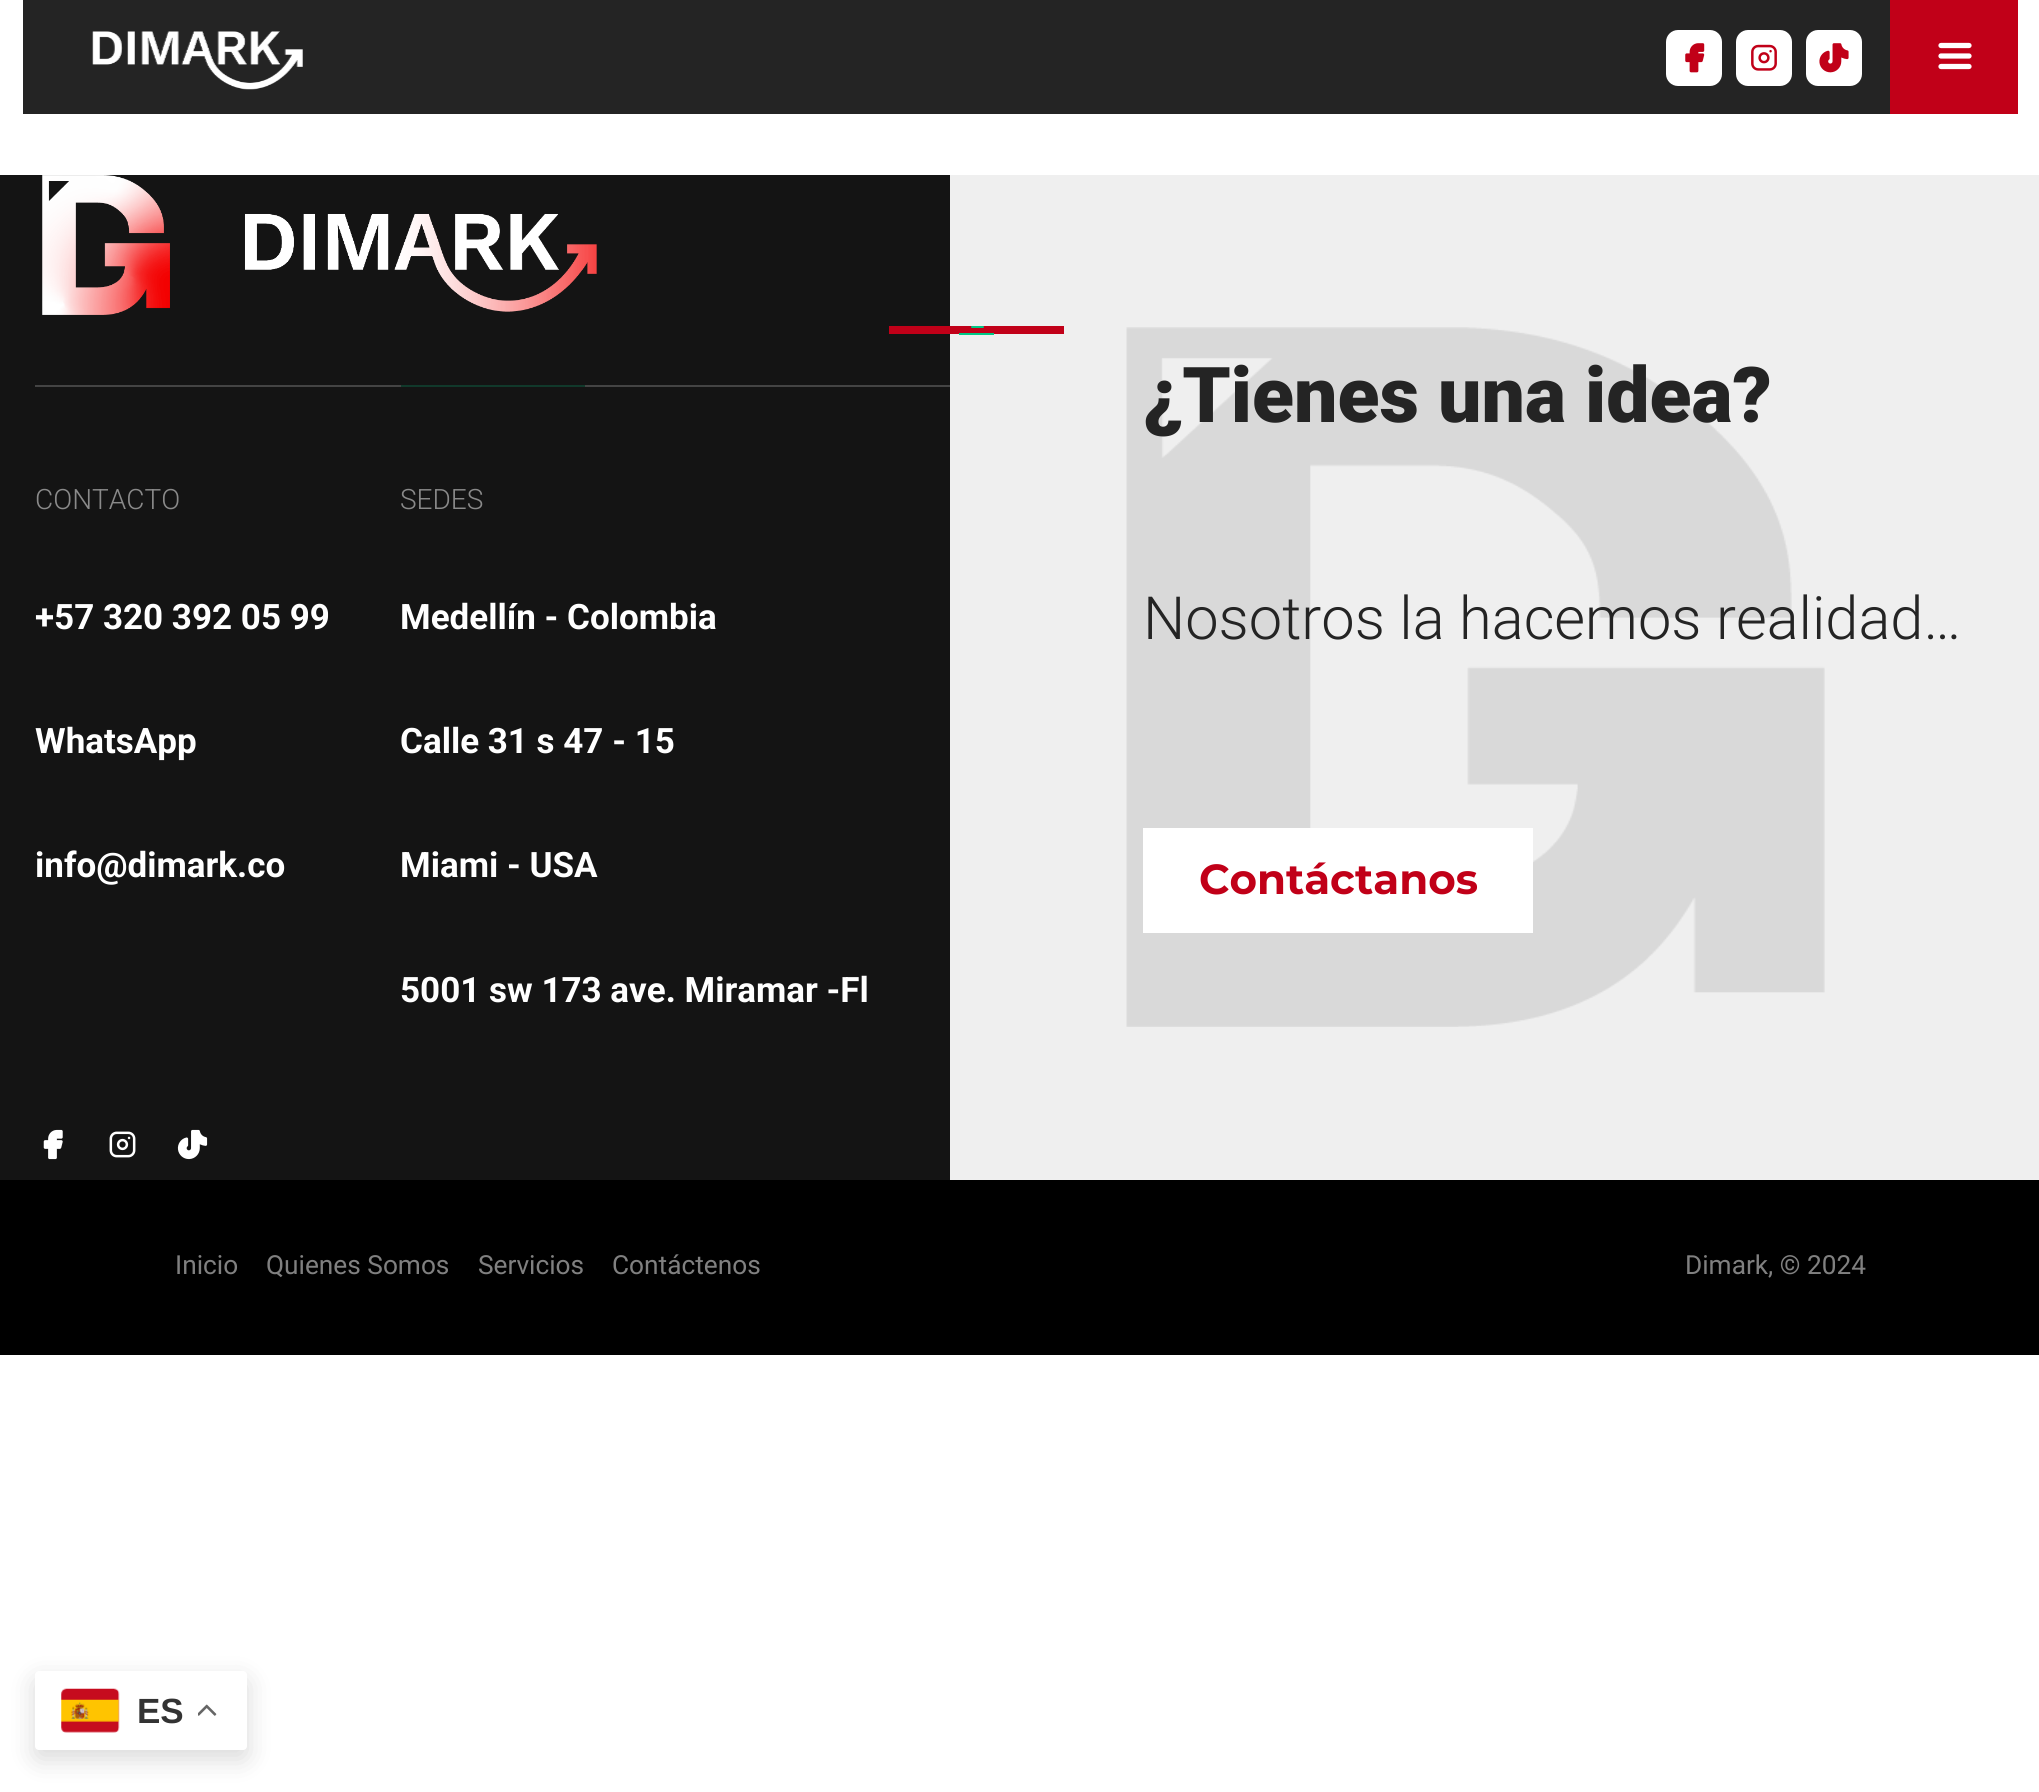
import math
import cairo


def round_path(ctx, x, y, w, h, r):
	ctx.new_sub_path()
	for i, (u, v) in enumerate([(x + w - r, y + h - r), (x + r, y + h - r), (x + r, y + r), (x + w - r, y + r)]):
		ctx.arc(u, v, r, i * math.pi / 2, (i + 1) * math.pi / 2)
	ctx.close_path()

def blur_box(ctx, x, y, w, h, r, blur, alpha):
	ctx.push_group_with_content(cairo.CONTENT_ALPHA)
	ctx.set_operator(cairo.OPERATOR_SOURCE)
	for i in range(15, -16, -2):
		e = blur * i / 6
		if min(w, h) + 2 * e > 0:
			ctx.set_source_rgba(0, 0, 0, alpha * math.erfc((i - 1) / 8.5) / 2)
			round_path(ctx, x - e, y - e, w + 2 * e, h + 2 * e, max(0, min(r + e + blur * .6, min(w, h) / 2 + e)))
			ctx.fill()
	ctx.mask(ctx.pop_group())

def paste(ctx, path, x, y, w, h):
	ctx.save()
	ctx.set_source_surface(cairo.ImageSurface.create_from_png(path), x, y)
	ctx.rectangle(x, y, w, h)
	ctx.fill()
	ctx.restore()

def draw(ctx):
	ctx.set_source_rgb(1, 1, 1)
	ctx.paint()
	ctx.set_source_rgb(0.141, 0.141, 0.141)
	ctx.rectangle(23, 0, 1867, 114)
	ctx.fill()
	paste(ctx, 'media/1.png', 92, 31, 211, 59)
	ctx.set_source_rgb(1, 1, 1)
	round_path(ctx, 1666, 30, 56, 56, 12)
	ctx.fill()
	paste(ctx, 'media/2.png', 1685, 43, 20, 30)
	round_path(ctx, 1736, 30, 56, 56, 12)
	ctx.fill()
	paste(ctx, 'media/3.png', 1751, 44, 26, 27)
	round_path(ctx, 1806, 30, 56, 56, 12)
	ctx.fill()
	paste(ctx, 'media/4.png', 1819, 43, 30, 30)
	ctx.set_source_rgb(0.757, 0, 0.094)
	ctx.rectangle(1890, 0, 128, 114)
	ctx.fill()
	ctx.new_path()
	ctx.move_to(1941, 45.5)
	ctx.line_to(1969, 45.5)
	ctx.move_to(1941, 56)
	ctx.line_to(1969, 56)
	ctx.move_to(1941, 66.5)
	ctx.line_to(1969, 66.5)
	ctx.set_source_rgb(1, 1, 1)
	ctx.set_line_width(5.2)
	ctx.set_line_cap(cairo.LINE_CAP_ROUND)
	ctx.set_line_join(cairo.LINE_JOIN_ROUND)
	ctx.stroke()
	ctx.set_source_rgb(0.082, 0.082, 0.082)
	ctx.rectangle(0, 175, 950, 1005)
	ctx.fill()
	paste(ctx, 'media/5.png', 42, 175, 555, 140)
	ctx.set_source_rgb(0.267, 0.267, 0.267)
	ctx.rectangle(35, 385, 915, 2)
	ctx.fill()
	ctx.set_source_rgb(0.067, 0.224, 0.169)
	ctx.rectangle(401, 385, 184, 2)
	ctx.fill()
	ctx.select_font_face('Roboto Light')
	ctx.set_font_size(28)
	ctx.set_source_rgb(0.541, 0.541, 0.541)
	ctx.move_to(35, 509)
	ctx.show_text('CONTACTO')
	ctx.select_font_face('Roboto', cairo.FONT_SLANT_NORMAL, cairo.FONT_WEIGHT_BOLD)
	ctx.set_font_size(35)
	ctx.set_source_rgb(1, 1, 1)
	for x, y, s in [
		(35, 629, '+57 320 392 05 99'),
		(35, 753, 'WhatsApp'),
		(35, 877, 'info@dimark.co'),
	]:
		ctx.move_to(x, y)
		ctx.show_text(s)
	ctx.select_font_face('Roboto Light')
	ctx.set_font_size(28)
	ctx.set_source_rgb(0.541, 0.541, 0.541)
	ctx.move_to(400, 509)
	ctx.show_text('SEDES')
	ctx.select_font_face('Roboto', cairo.FONT_SLANT_NORMAL, cairo.FONT_WEIGHT_BOLD)
	ctx.set_font_size(35)
	ctx.set_source_rgb(1, 1, 1)
	for x, y, s in [
		(400, 629, 'Medellín - Colombia'),
		(400, 753, 'Calle 31 s 47 - 15'),
		(400, 877, 'Miami - USA'),
		(400, 1002, '5001 sw 173 ave. Miramar -Fl'),
	]:
		ctx.move_to(x, y)
		ctx.show_text(s)
	paste(ctx, 'media/6.png', 43, 1129, 20, 31)
	paste(ctx, 'media/7.png', 109, 1131, 27, 27)
	paste(ctx, 'media/8.png', 177, 1129, 31, 31)
	ctx.set_source_rgb(0.937, 0.937, 0.937)
	ctx.rectangle(950, 175, 1089, 1005)
	ctx.fill()
	paste(ctx, 'media/9.png', 1126, 327, 699, 700)
	ctx.set_source_rgb(0.757, 0, 0.094)
	ctx.rectangle(889, 326, 175, 8)
	ctx.fill()
	ctx.set_source_rgb(0, 0.784, 0.522)
	round_path(ctx, 971, 326, 13, 2, 1)
	ctx.fill()
	ctx.rectangle(959, 333, 35, 2)
	ctx.fill()
	ctx.select_font_face('Roboto Black')
	ctx.set_font_size(77)
	ctx.set_source_rgb(0.141, 0.141, 0.141)
	ctx.move_to(1143, 422)
	ctx.show_text('¿Tienes una idea?')
	ctx.select_font_face('Roboto Light')
	ctx.set_font_size(59.5)
	ctx.move_to(1143, 639)
	ctx.show_text('Nosotros la hacemos realidad…')
	ctx.set_source_rgb(1, 1, 1)
	ctx.rectangle(1143, 828, 390, 105)
	ctx.fill()
	ctx.select_font_face('Montserrat', cairo.FONT_SLANT_NORMAL, cairo.FONT_WEIGHT_BOLD)
	ctx.set_font_size(42)
	ctx.set_source_rgb(0.757, 0, 0.094)
	ctx.move_to(1199, 894)
	ctx.show_text('Contáctanos')
	ctx.set_source_rgb(0, 0, 0)
	ctx.rectangle(0, 1180, 2039, 175)
	ctx.fill()
	ctx.select_font_face('Roboto')
	ctx.set_font_size(26.25)
	ctx.set_source_rgb(0.502, 0.502, 0.502)
	for x, y, s in [
		(175, 1274, 'Inicio'),
		(266, 1274, 'Quienes Somos'),
		(478, 1274, 'Servicios'),
		(612, 1274, 'Contáctenos'),
		(1685, 1274, 'Dimark, © 2024'),
	]:
		ctx.move_to(x, y)
		ctx.show_text(s)
	ctx.set_source_rgb(0, 0, 0)
	blur_box(ctx, 35, 1680, 212, 79, 4, 13, 0.15)
	ctx.set_source_rgb(1, 1, 1)
	round_path(ctx, 35, 1671, 212, 79, 4)
	ctx.fill()
	paste(ctx, 'media/10.png', 61, 1688, 59, 45)
	ctx.select_font_face('Liberation Sans', cairo.FONT_SLANT_NORMAL, cairo.FONT_WEIGHT_BOLD)
	ctx.set_font_size(35)
	ctx.set_source_rgb(0.2, 0.2, 0.2)
	ctx.move_to(137, 1723)
	ctx.show_text('ES')
	paste(ctx, 'media/11.png', 198, 1704, 19, 12)


surface = cairo.ImageSurface(cairo.FORMAT_RGB24, 2039, 1792)
ctx = cairo.Context(surface)
options = cairo.FontOptions()
options.set_hint_metrics(cairo.HINT_METRICS_OFF)
options.set_hint_style(cairo.HINT_STYLE_NONE)
ctx.set_font_options(options)
ctx.set_miter_limit(4)
draw(ctx)
surface.write_to_png('image.png')
